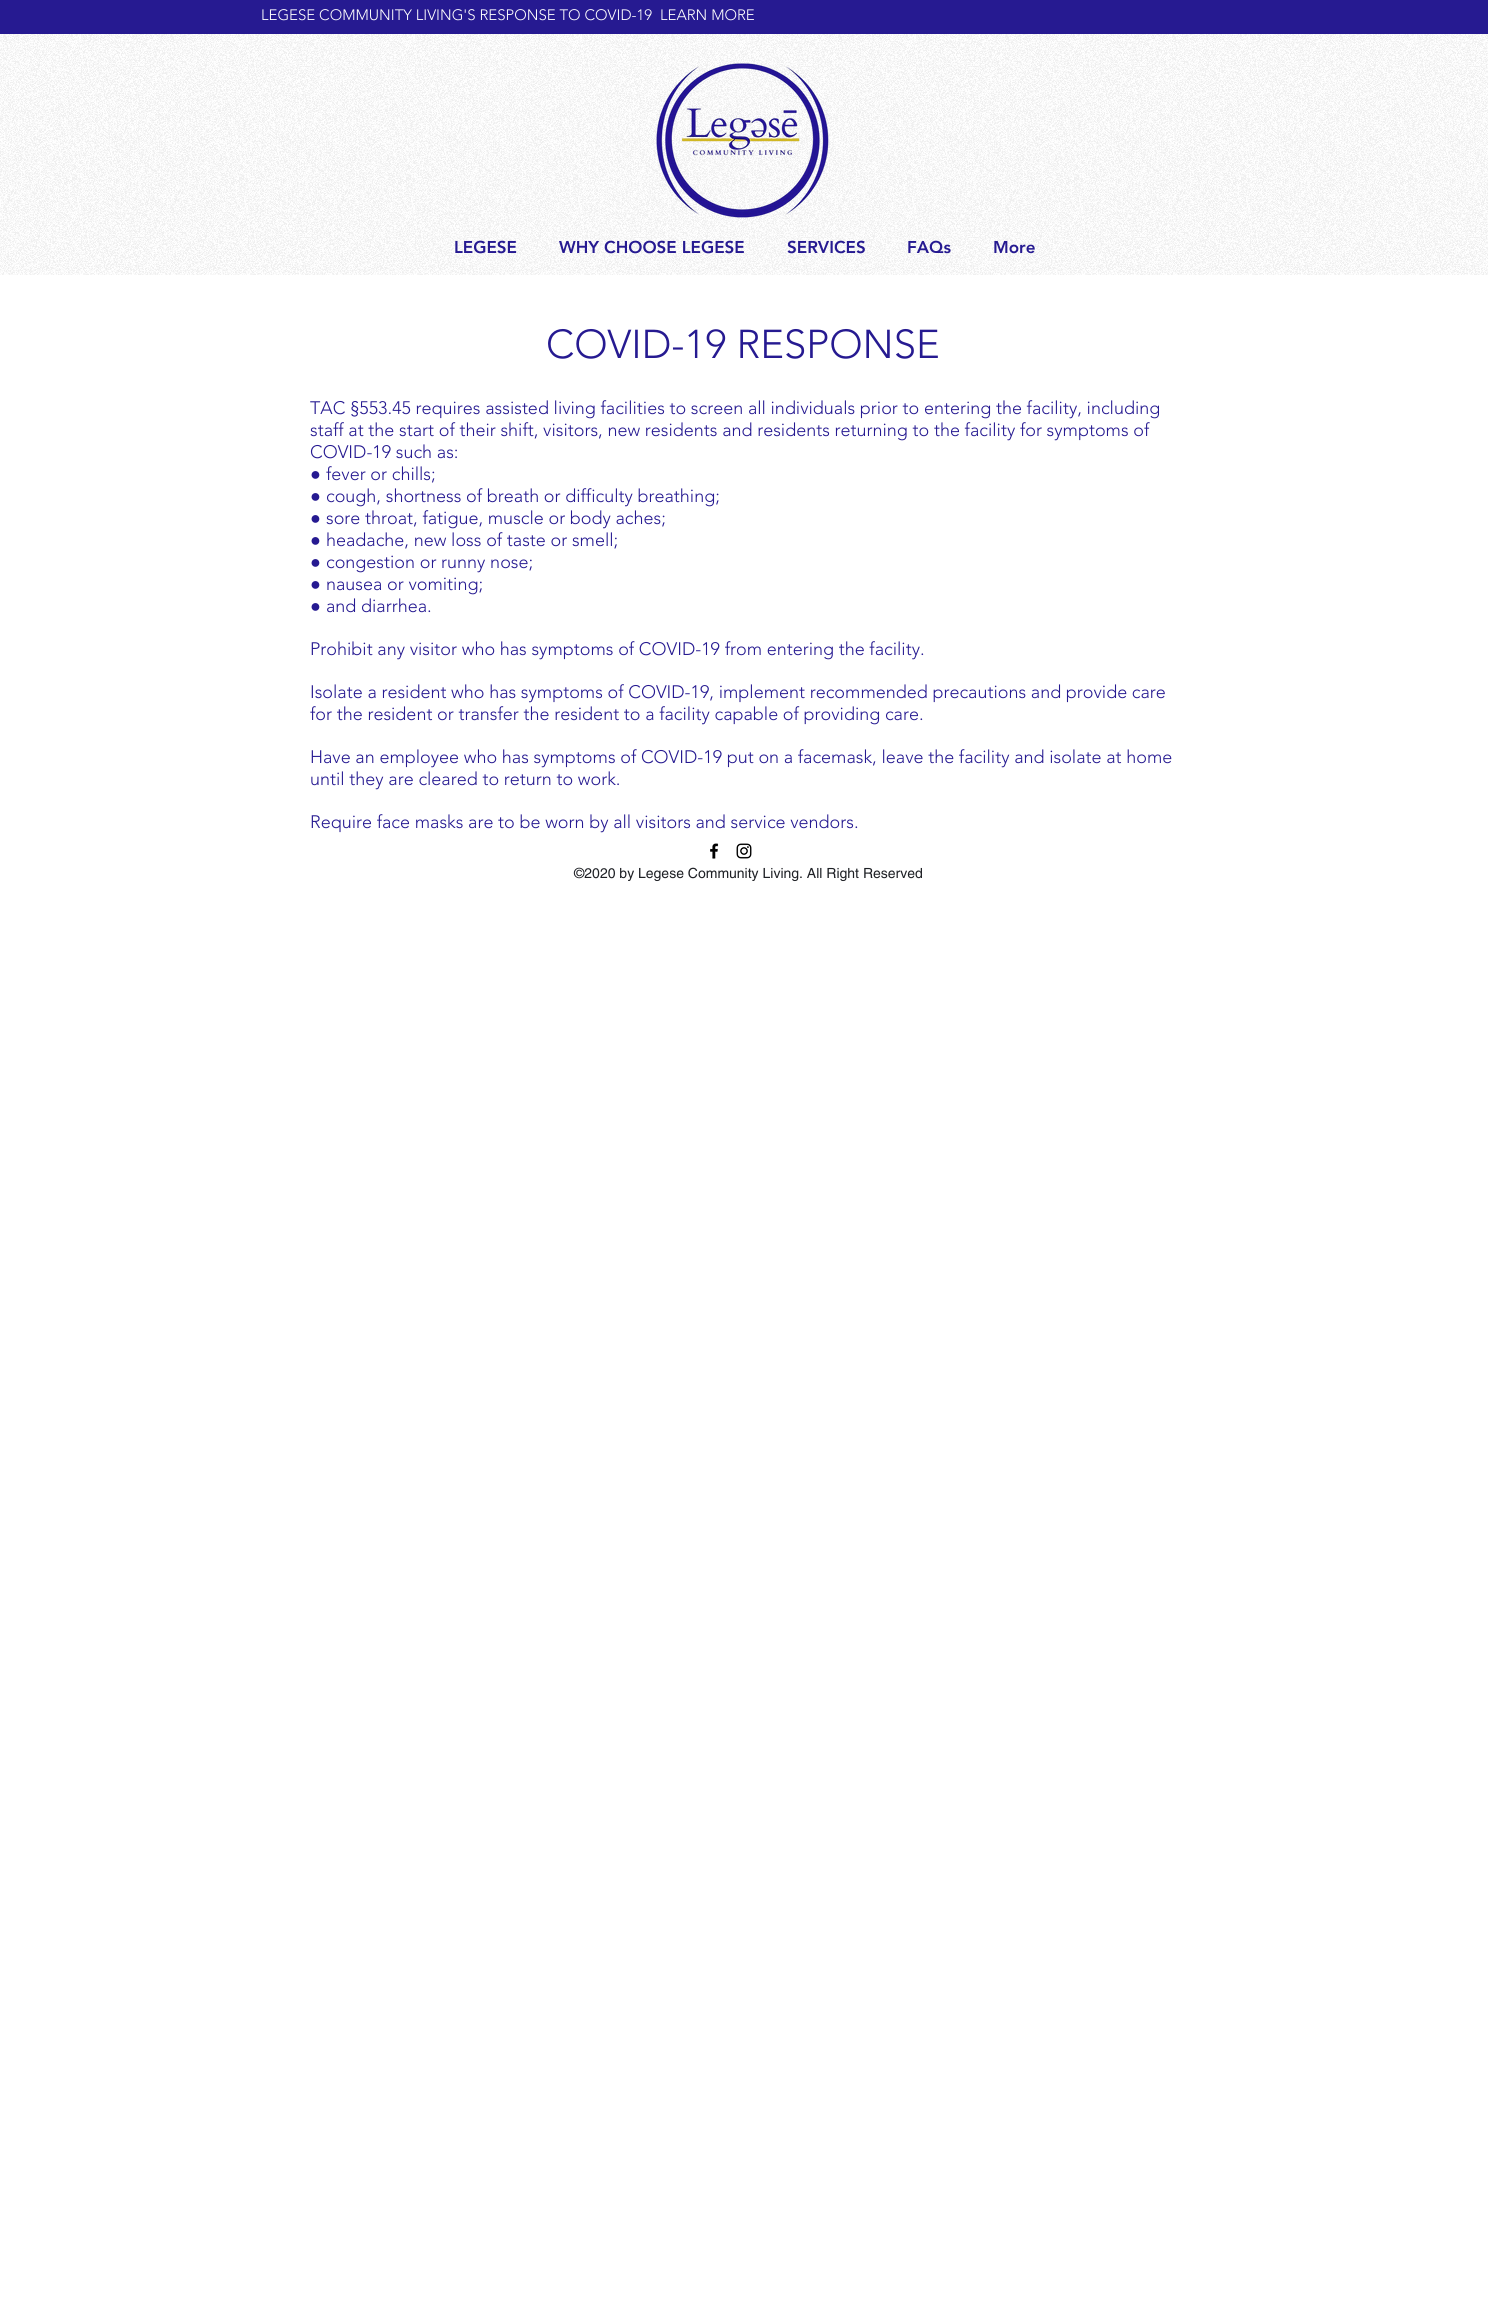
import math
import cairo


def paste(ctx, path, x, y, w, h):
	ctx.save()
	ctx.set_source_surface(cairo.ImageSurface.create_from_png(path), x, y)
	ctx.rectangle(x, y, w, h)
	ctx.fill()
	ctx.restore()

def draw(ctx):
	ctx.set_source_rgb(1, 1, 1)
	ctx.paint()
	ctx.set_source_rgb(0.149, 0.102, 0.569)
	ctx.rectangle(0, 0, 1488, 34)
	ctx.fill()
	ctx.select_font_face('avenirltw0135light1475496 Light')
	ctx.set_font_size(15)
	ctx.set_source_rgb(1, 1, 1)
	ctx.move_to(261, 20)
	ctx.show_text('LEGESE COMMUNITY LIVING\'S RESPONSE TO COVID-19')
	ctx.move_to(660, 20)
	ctx.show_text('LEARN MORE')
	paste(ctx, 'media/2.png', 0, 34, 1488, 241)
	paste(ctx, 'media/1.png', 656, 63, 173, 155)
	ctx.select_font_face('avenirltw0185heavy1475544 Black')
	ctx.set_font_size(17)
	ctx.set_source_rgb(0.149, 0.102, 0.569)
	for x, y, s in [
		(454, 253, 'LEGESE'),
		(559, 253, 'WHY CHOOSE LEGESE'),
		(787, 253, 'SERVICES'),
		(907, 253, 'FAQs'),
		(993, 253, 'More'),
	]:
		ctx.move_to(x, y)
		ctx.show_text(s)
	ctx.select_font_face('avenirltw0135light1475496 Light')
	ctx.set_font_size(40)
	ctx.move_to(546, 358)
	ctx.show_text('COVID-19 RESPONSE')
	ctx.set_font_size(18)
	for x, y, s in [
		(310, 414, 'TAC §553.45 requires assisted living facilities to screen all individuals prior to entering the facility, including'),
		(310, 436, 'staff at the start of their shift, visitors, new residents and residents returning to the facility for symptoms of'),
		(310, 458, 'COVID-19 such as:'),
	]:
		ctx.move_to(x, y)
		ctx.show_text(s)
	ctx.select_font_face('Liberation Sans')
	ctx.move_to(310, 480)
	ctx.show_text('●')
	ctx.select_font_face('avenirltw0135light1475496 Light')
	ctx.move_to(326, 480)
	ctx.show_text('fever or chills;')
	ctx.select_font_face('Liberation Sans')
	ctx.move_to(310, 502)
	ctx.show_text('●')
	ctx.select_font_face('avenirltw0135light1475496 Light')
	ctx.move_to(326, 502)
	ctx.show_text('cough, shortness of breath or difficulty breathing;')
	ctx.select_font_face('Liberation Sans')
	ctx.move_to(310, 524)
	ctx.show_text('●')
	ctx.select_font_face('avenirltw0135light1475496 Light')
	ctx.move_to(326, 524)
	ctx.show_text('sore throat, fatigue, muscle or body aches;')
	ctx.select_font_face('Liberation Sans')
	ctx.move_to(310, 546)
	ctx.show_text('●')
	ctx.select_font_face('avenirltw0135light1475496 Light')
	ctx.move_to(326, 546)
	ctx.show_text('headache, new loss of taste or smell;')
	ctx.select_font_face('Liberation Sans')
	ctx.move_to(310, 568)
	ctx.show_text('●')
	ctx.select_font_face('avenirltw0135light1475496 Light')
	ctx.move_to(326, 568)
	ctx.show_text('congestion or runny nose;')
	ctx.select_font_face('Liberation Sans')
	ctx.move_to(310, 590)
	ctx.show_text('●')
	ctx.select_font_face('avenirltw0135light1475496 Light')
	ctx.move_to(326, 590)
	ctx.show_text('nausea or vomiting;')
	ctx.select_font_face('Liberation Sans')
	ctx.move_to(310, 612)
	ctx.show_text('●')
	ctx.select_font_face('avenirltw0135light1475496 Light')
	for x, y, s in [
		(326, 612, 'and diarrhea.'),
		(310, 655, 'Prohibit any visitor who has symptoms of COVID-19 from entering the facility.'),
		(310, 698, 'Isolate a resident who has symptoms of COVID-19, implement recommended precautions and provide care'),
		(310, 720, 'for the resident or transfer the resident to a facility capable of providing care.'),
		(310, 763, 'Have an employee who has symptoms of COVID-19 put on a facemask, leave the facility and isolate at home'),
		(310, 785, 'until they are cleared to return to work.'),
		(310, 828, 'Require face masks are to be worn by all visitors and service vendors.'),
	]:
		ctx.move_to(x, y)
		ctx.show_text(s)
	paste(ctx, 'media/3.png', 710, 843, 9, 16)
	paste(ctx, 'media/4.png', 736, 843, 16, 16)
	ctx.select_font_face('helvetica')
	ctx.set_font_size(14)
	ctx.set_source_rgb(0.118, 0.125, 0.145)
	ctx.move_to(574, 878)
	ctx.show_text('©2020 by Legese Community Living. All Right Reserved')


surface = cairo.ImageSurface(cairo.FORMAT_RGB24, 1488, 2312)
ctx = cairo.Context(surface)
options = cairo.FontOptions()
options.set_hint_metrics(cairo.HINT_METRICS_OFF)
options.set_hint_style(cairo.HINT_STYLE_NONE)
ctx.set_font_options(options)
ctx.set_miter_limit(4)
draw(ctx)
surface.write_to_png('image.png')
